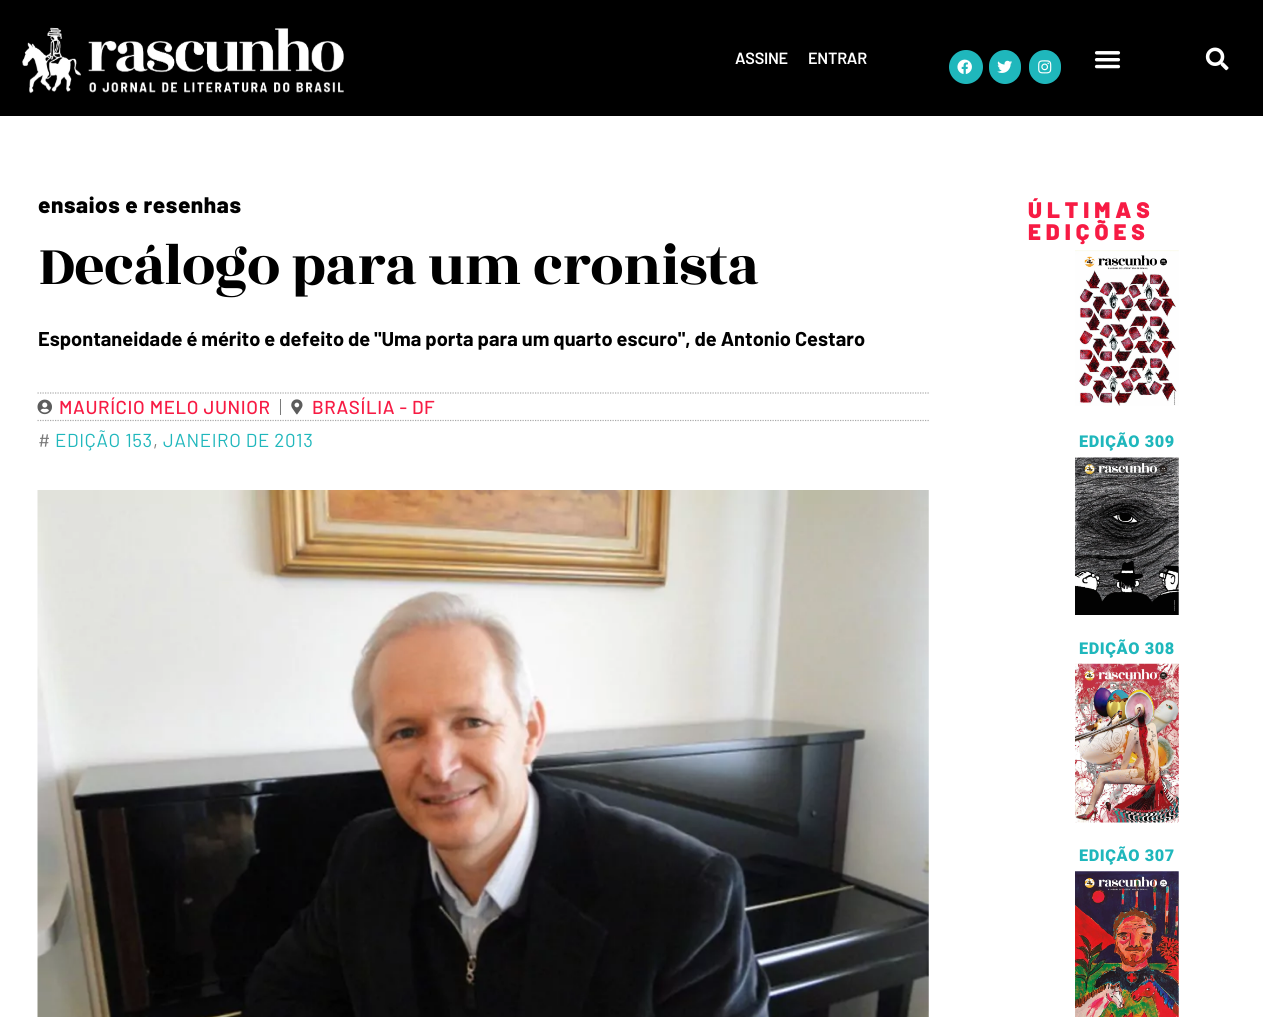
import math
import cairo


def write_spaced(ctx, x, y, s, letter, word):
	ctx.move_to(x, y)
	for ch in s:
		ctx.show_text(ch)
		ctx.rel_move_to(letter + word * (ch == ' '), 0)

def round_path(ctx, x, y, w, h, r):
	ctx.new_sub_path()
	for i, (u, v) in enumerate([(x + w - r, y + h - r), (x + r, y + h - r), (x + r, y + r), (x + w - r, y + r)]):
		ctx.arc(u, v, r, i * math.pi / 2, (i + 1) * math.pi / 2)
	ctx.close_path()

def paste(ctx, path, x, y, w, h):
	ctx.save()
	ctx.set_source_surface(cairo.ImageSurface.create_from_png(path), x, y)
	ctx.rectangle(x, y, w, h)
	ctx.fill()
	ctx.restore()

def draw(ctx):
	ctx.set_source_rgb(1, 1, 1)
	ctx.paint()
	ctx.set_source_rgb(0, 0, 0)
	ctx.rectangle(0, 0, 1263, 116)
	ctx.fill()
	paste(ctx, 'media/1.png', 22, 27, 322, 67)
	ctx.select_font_face('Barlow SemiBold')
	ctx.set_font_size(16.25)
	ctx.set_source_rgb(1, 1, 1)
	write_spaced(ctx, 735, 64, 'ASSINE', -0.25, 0)
	write_spaced(ctx, 808, 64, 'ENTRAR', -0.25, 0)
	ctx.set_source_rgb(0.122, 0.718, 0.737)
	ctx.new_path()
	ctx.arc(966, 67, 17, 0, 2 * math.pi)
	ctx.fill()
	paste(ctx, 'media/2.png', 957, 59, 15, 15)
	round_path(ctx, 989, 50, 32, 34, 16)
	ctx.fill()
	paste(ctx, 'media/3.png', 997, 60, 15, 13)
	round_path(ctx, 1029, 50, 32, 34, 16)
	ctx.fill()
	paste(ctx, 'media/4.png', 1038, 60, 14, 14)
	paste(ctx, 'media/5.png', 1094, 51, 27, 18)
	paste(ctx, 'media/6.png', 1205, 47, 24, 24)
	ctx.select_font_face('Barlow ExtraBold')
	ctx.set_font_size(22.5)
	ctx.set_source_rgb(0, 0, 0)
	write_spaced(ctx, 38, 213, 'ensaios e resenhas', 0.6, 0)
	ctx.select_font_face('Rozha One')
	ctx.set_font_size(60)
	write_spaced(ctx, 38, 284, 'Decálogo para um cronista', -1, 0)
	ctx.select_font_face('Barlow', cairo.FONT_SLANT_NORMAL, cairo.FONT_WEIGHT_BOLD)
	ctx.set_font_size(20)
	ctx.move_to(38, 346)
	ctx.show_text('Espontaneidade é mérito e defeito de "Uma porta para um quarto escuro", de Antonio Cestaro')
	ctx.new_path()
	ctx.move_to(37.5, 393)
	ctx.line_to(929, 393)
	ctx.set_source_rgb(0.667, 0.667, 0.667)
	ctx.set_line_width(1.2)
	ctx.set_dash([1.25, 1.25])
	ctx.stroke()
	ctx.new_path()
	ctx.move_to(37.5, 420.5)
	ctx.line_to(929, 420.5)
	ctx.stroke()
	paste(ctx, 'media/7.png', 37, 399, 15, 16)
	ctx.select_font_face('Barlow Medium')
	ctx.set_font_size(18.75)
	ctx.set_source_rgb(0.965, 0.106, 0.267)
	write_spaced(ctx, 59, 414, 'MAURÍCIO MELO JUNIOR', 0.6, 0)
	ctx.set_source_rgb(0.478, 0.478, 0.478)
	ctx.rectangle(280, 399, 1, 16)
	ctx.fill()
	paste(ctx, 'media/8.png', 291, 399, 12, 16)
	ctx.set_source_rgb(0.965, 0.106, 0.267)
	write_spaced(ctx, 312, 414, 'BRASÍLIA - DF', 0.6, 0)
	ctx.select_font_face('Barlow')
	ctx.set_source_rgb(0.478, 0.478, 0.478)
	write_spaced(ctx, 38, 447, '#', 0.6, 0)
	ctx.set_source_rgb(0.122, 0.718, 0.737)
	write_spaced(ctx, 55, 447, 'EDIÇÃO 153', 0.6, 0)
	ctx.set_source_rgb(0.478, 0.478, 0.478)
	write_spaced(ctx, 153, 447, ',', 0.6, 0)
	ctx.set_source_rgb(0.122, 0.718, 0.737)
	write_spaced(ctx, 163, 447, 'JANEIRO DE 2013', 0.6, 0)
	paste(ctx, 'media/9.png', 37, 490, 892, 527)
	ctx.select_font_face('Barlow Black')
	ctx.set_font_size(22.5)
	ctx.set_source_rgb(0.965, 0.106, 0.267)
	write_spaced(ctx, 1028, 218, 'ÚLTIMAS', 5, 0)
	write_spaced(ctx, 1028, 240, 'EDIÇÕES', 5, 0)
	paste(ctx, 'media/10.png', 1075, 250, 104, 156)
	ctx.select_font_face('Roboto Black')
	ctx.set_font_size(16.25)
	ctx.set_source_rgb(0.122, 0.718, 0.737)
	write_spaced(ctx, 1079, 447, 'EDIÇÃO 309', 0.6, 0)
	paste(ctx, 'media/11.png', 1075, 457, 104, 158)
	write_spaced(ctx, 1079, 654, 'EDIÇÃO 308', 0.6, 0)
	paste(ctx, 'media/12.png', 1075, 663, 104, 160)
	write_spaced(ctx, 1079, 861, 'EDIÇÃO 307', 0.6, 0)
	paste(ctx, 'media/13.png', 1075, 871, 104, 146)


surface = cairo.ImageSurface(cairo.FORMAT_RGB24, 1263, 1017)
ctx = cairo.Context(surface)
options = cairo.FontOptions()
options.set_hint_metrics(cairo.HINT_METRICS_OFF)
options.set_hint_style(cairo.HINT_STYLE_NONE)
ctx.set_font_options(options)
ctx.set_miter_limit(4)
draw(ctx)
surface.write_to_png('image.png')
